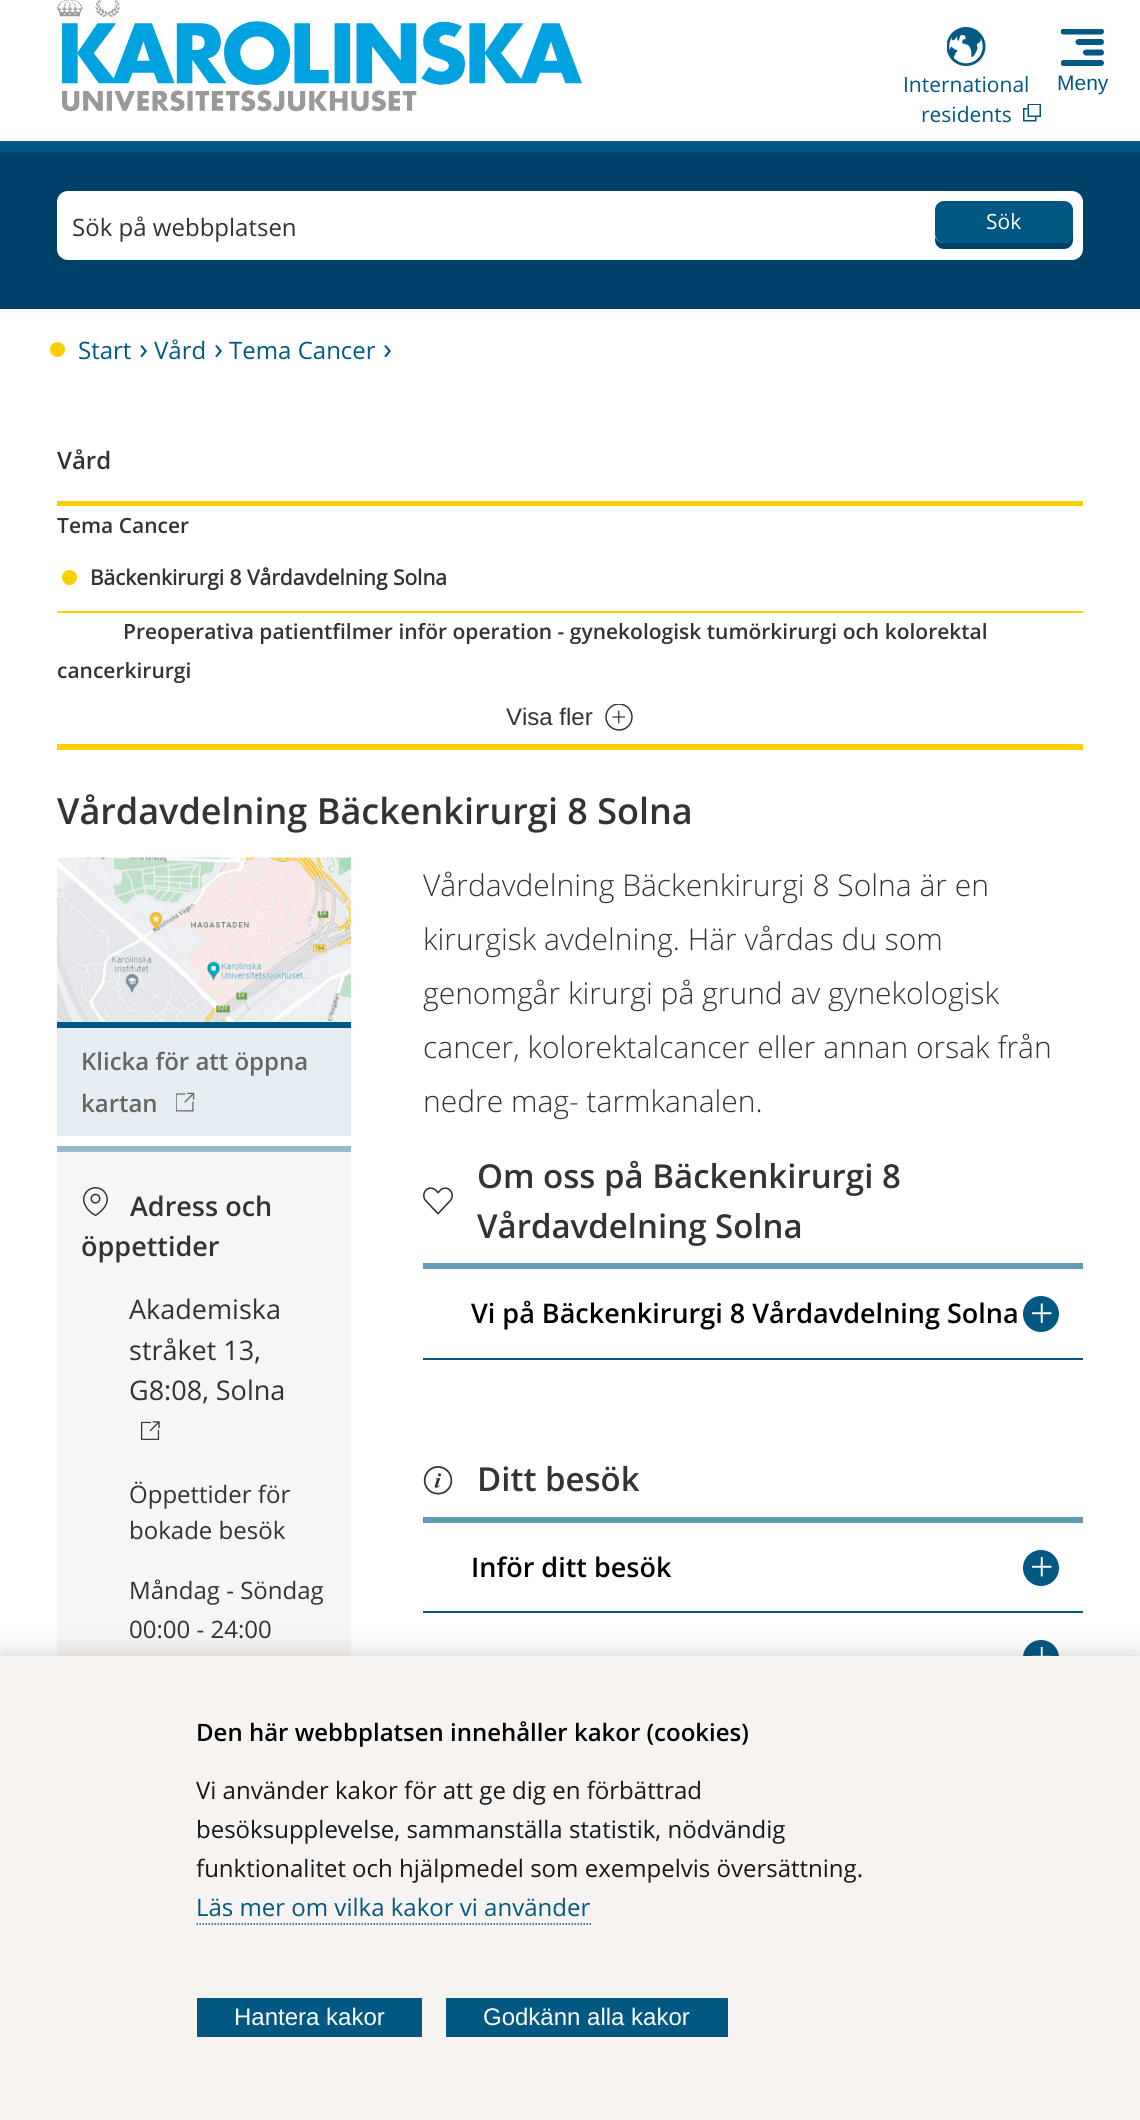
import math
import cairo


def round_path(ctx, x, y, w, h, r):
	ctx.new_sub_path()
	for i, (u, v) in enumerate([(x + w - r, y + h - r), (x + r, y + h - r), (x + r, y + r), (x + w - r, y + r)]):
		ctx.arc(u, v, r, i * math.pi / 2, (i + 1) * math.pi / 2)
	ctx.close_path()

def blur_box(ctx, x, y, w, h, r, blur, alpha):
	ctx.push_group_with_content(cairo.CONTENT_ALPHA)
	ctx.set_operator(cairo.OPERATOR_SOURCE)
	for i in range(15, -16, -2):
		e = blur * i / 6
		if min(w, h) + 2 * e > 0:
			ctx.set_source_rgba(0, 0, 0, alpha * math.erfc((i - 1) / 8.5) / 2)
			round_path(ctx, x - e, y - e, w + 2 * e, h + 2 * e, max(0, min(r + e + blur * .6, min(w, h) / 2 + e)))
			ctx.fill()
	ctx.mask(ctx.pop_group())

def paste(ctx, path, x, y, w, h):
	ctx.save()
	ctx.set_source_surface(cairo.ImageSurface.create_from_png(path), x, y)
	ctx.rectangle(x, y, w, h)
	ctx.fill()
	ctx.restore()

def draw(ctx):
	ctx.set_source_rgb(1, 1, 1)
	ctx.paint()
	ctx.set_source_rgb(0, 0.345, 0.514)
	ctx.rectangle(0, 141, 1140, 11)
	ctx.fill()
	paste(ctx, 'media/1.png', 57, 0, 525, 112)
	paste(ctx, 'media/2.png', 947, 27, 39, 39)
	ctx.select_font_face('Open Sans')
	ctx.set_font_size(21)
	ctx.move_to(903, 92)
	ctx.show_text('International')
	ctx.move_to(921, 122)
	ctx.show_text('residents')
	paste(ctx, 'media/3.png', 1023, 104, 18, 18)
	paste(ctx, 'media/4.png', 1061, 29, 43, 37)
	ctx.select_font_face('Liberation Sans')
	ctx.move_to(1057, 90)
	ctx.show_text('Meny')
	ctx.set_source_rgb(0, 0.255, 0.412)
	ctx.rectangle(0, 152, 1140, 157)
	ctx.fill()
	ctx.set_source_rgb(1, 1, 1)
	round_path(ctx, 57, 191, 1026, 69, 11)
	ctx.fill()
	ctx.select_font_face('Open Sans')
	ctx.set_font_size(24)
	ctx.set_source_rgb(0.2, 0.2, 0.2)
	ctx.move_to(72, 236)
	ctx.show_text('Sök på webbplatsen')
	ctx.set_source_rgb(0, 0.255, 0.412)
	ctx.new_path()
	ctx.move_to(935, 237)
	ctx.line_to(935, 240)
	ctx.curve_to(935, 245, 939, 249, 944, 249)
	ctx.line_to(1064, 249)
	ctx.curve_to(1069, 249, 1073, 245, 1073, 240)
	ctx.line_to(1073, 216)
	ctx.line_to(1072, 213)
	ctx.line_to(1072, 234)
	ctx.curve_to(1072, 239, 1068, 243, 1064, 243)
	ctx.line_to(944, 243)
	ctx.curve_to(940, 243, 936, 240, 935, 237)
	ctx.close_path()
	ctx.fill()
	ctx.set_source_rgb(0, 0.345, 0.514)
	round_path(ctx, 935, 201, 138, 42, 9)
	ctx.fill()
	ctx.set_font_size(21)
	ctx.set_source_rgb(1, 1, 1)
	ctx.move_to(986, 229)
	ctx.show_text('Sök')
	ctx.set_source_rgb(1, 0.808, 0)
	ctx.new_path()
	ctx.arc(57.5, 349.5, 7.5, 0, 2 * math.pi)
	ctx.fill()
	ctx.set_font_size(24)
	ctx.set_source_rgb(0, 0.345, 0.514)
	ctx.move_to(78, 359)
	ctx.show_text('Start')
	ctx.set_font_size(30)
	ctx.move_to(139, 359)
	ctx.show_text('›')
	ctx.set_font_size(24)
	ctx.move_to(154, 359)
	ctx.show_text('Vård')
	ctx.set_font_size(30)
	ctx.move_to(214, 359)
	ctx.show_text('›')
	ctx.set_font_size(24)
	ctx.move_to(229, 359)
	ctx.show_text('Tema Cancer')
	ctx.set_font_size(30)
	ctx.move_to(383, 359)
	ctx.show_text('›')
	ctx.set_source_rgb(1, 0.808, 0)
	ctx.rectangle(57, 501, 1026, 5)
	ctx.fill()
	ctx.select_font_face('Open Sans SemiBold')
	ctx.set_font_size(24)
	ctx.set_source_rgb(0.2, 0.2, 0.2)
	ctx.move_to(57, 469)
	ctx.show_text('Vård')
	ctx.set_font_size(21)
	ctx.move_to(57, 533)
	ctx.show_text('Tema Cancer')
	ctx.set_source_rgb(1, 0.808, 0)
	ctx.rectangle(57, 611, 1026, 2)
	ctx.fill()
	ctx.arc(69.5, 577.5, 7.5, 0, 2 * math.pi)
	ctx.fill()
	ctx.select_font_face('Open Sans', cairo.FONT_SLANT_NORMAL, cairo.FONT_WEIGHT_BOLD)
	ctx.set_source_rgb(0.2, 0.2, 0.2)
	ctx.move_to(90, 585)
	ctx.show_text('Bäckenkirurgi 8 Vårdavdelning Solna')
	ctx.select_font_face('Open Sans SemiBold')
	ctx.move_to(123, 639)
	ctx.show_text('Preoperativa patientfilmer inför operation - gynekologisk tumörkirurgi och kolorektal')
	ctx.move_to(57, 678)
	ctx.show_text('cancerkirurgi')
	ctx.set_source_rgb(1, 0.808, 0)
	ctx.rectangle(57, 744, 1026, 6)
	ctx.fill()
	ctx.select_font_face('Liberation Sans')
	ctx.set_font_size(24)
	ctx.set_source_rgb(0.2, 0.2, 0.2)
	ctx.move_to(506, 725)
	ctx.show_text('Visa fler')
	paste(ctx, 'media/5.png', 605, 704, 28, 27)
	ctx.select_font_face('Open Sans SemiBold')
	ctx.set_font_size(36)
	ctx.move_to(57, 824)
	ctx.show_text('Vårdavdelning Bäckenkirurgi 8 Solna')
	paste(ctx, 'media/6.png', 57, 857, 294, 165)
	ctx.set_source_rgb(0.898, 0.933, 0.953)
	ctx.rectangle(57, 1028, 294, 108)
	ctx.fill()
	ctx.set_source_rgb(0, 0.345, 0.514)
	ctx.rectangle(57, 1022, 294, 6)
	ctx.fill()
	ctx.set_font_size(24)
	ctx.set_source_rgb(0.4, 0.4, 0.4)
	ctx.move_to(81, 1070)
	ctx.show_text('Klicka för att öppna')
	ctx.move_to(81, 1112)
	ctx.show_text('kartan')
	paste(ctx, 'media/7.png', 176, 1092, 19, 20)
	ctx.set_source_rgb(0.965, 0.961, 0.957)
	ctx.rectangle(57, 1152, 294, 504)
	ctx.fill()
	ctx.set_source_rgb(0.6, 0.737, 0.804)
	ctx.rectangle(57, 1146, 294, 6)
	ctx.fill()
	paste(ctx, 'media/8.png', 83, 1187, 25, 30)
	ctx.set_font_size(27)
	ctx.set_source_rgb(0.2, 0.2, 0.2)
	ctx.move_to(130, 1216)
	ctx.show_text('Adress och')
	ctx.move_to(81, 1256)
	ctx.show_text('öppettider')
	ctx.select_font_face('Open Sans')
	for x, y, s in [
		(129, 1319, 'Akademiska'),
		(129, 1360, 'stråket 13,'),
		(129, 1400, 'G8:08, Solna'),
	]:
		ctx.move_to(x, y)
		ctx.show_text(s)
	paste(ctx, 'media/9.png', 141, 1421, 19, 19)
	ctx.set_font_size(24)
	for x, y, s in [
		(129, 1503, 'Öppettider för'),
		(129, 1539, 'bokade besök'),
		(129, 1599, 'Måndag - Söndag'),
		(129, 1638, '00:00 - 24:00'),
	]:
		ctx.move_to(x, y)
		ctx.show_text(s)
	ctx.select_font_face('Open Sans Light')
	ctx.set_font_size(30)
	for x, y, s in [
		(423, 896, 'Vårdavdelning Bäckenkirurgi 8 Solna är en'),
		(423, 950, 'kirurgisk avdelning. Här vårdas du som'),
		(423, 1004, 'genomgår kirurgi på grund av gynekologisk'),
		(423, 1058, 'cancer, kolorektalcancer eller annan orsak från'),
		(423, 1112, 'nedre mag- tarmkanalen.'),
	]:
		ctx.move_to(x, y)
		ctx.show_text(s)
	ctx.set_source_rgb(0.4, 0.608, 0.71)
	ctx.rectangle(423, 1263, 660, 6)
	ctx.fill()
	paste(ctx, 'media/10.png', 423, 1187, 30, 28)
	ctx.select_font_face('Open Sans SemiBold')
	ctx.set_font_size(33)
	ctx.set_source_rgb(0.2, 0.2, 0.2)
	ctx.move_to(477, 1188)
	ctx.show_text('Om oss på Bäckenkirurgi 8')
	ctx.move_to(477, 1238)
	ctx.show_text('Vårdavdelning Solna')
	ctx.set_source_rgb(0, 0.345, 0.514)
	ctx.rectangle(423, 1358, 660, 2)
	ctx.fill()
	ctx.set_font_size(27)
	ctx.set_source_rgb(0, 0, 0)
	ctx.move_to(471, 1323)
	ctx.show_text('Vi på Bäckenkirurgi 8 Vårdavdelning Solna')
	ctx.set_source_rgb(0, 0.345, 0.514)
	ctx.new_path()
	ctx.arc(1041, 1314, 18, 0, 2 * math.pi)
	ctx.fill()
	paste(ctx, 'media/11.png', 1032, 1303, 20, 20)
	ctx.set_source_rgb(0.4, 0.608, 0.71)
	ctx.rectangle(423, 1517, 660, 6)
	ctx.fill()
	paste(ctx, 'media/12.png', 423, 1466, 30, 29)
	ctx.set_font_size(33)
	ctx.set_source_rgb(0.2, 0.2, 0.2)
	ctx.move_to(477, 1491)
	ctx.show_text('Ditt besök')
	ctx.set_source_rgb(0, 0.345, 0.514)
	ctx.rectangle(423, 1611, 660, 2)
	ctx.fill()
	ctx.set_font_size(27)
	ctx.set_source_rgb(0, 0, 0)
	ctx.move_to(471, 1577)
	ctx.show_text('Inför ditt besök')
	ctx.set_source_rgb(0, 0.345, 0.514)
	ctx.new_path()
	ctx.arc(1041, 1568, 18, 0, 2 * math.pi)
	ctx.fill()
	paste(ctx, 'media/13.png', 1032, 1557, 20, 20)
	ctx.arc(1041, 1658, 18, 0, 2 * math.pi)
	ctx.fill()
	paste(ctx, 'media/14.png', 1032, 1647, 20, 9)
	ctx.set_source_rgb(0, 0, 0)
	blur_box(ctx, 0, 1656, 1140, 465, 0, 13.5, 0.2)
	ctx.set_source_rgb(0.961, 0.953, 0.941)
	ctx.rectangle(0, 1656, 1140, 464)
	ctx.fill()
	ctx.set_font_size(24)
	ctx.set_source_rgb(0, 0, 0)
	ctx.move_to(196, 1741)
	ctx.show_text('Den här webbplatsen innehåller kakor (cookies)')
	ctx.select_font_face('Open Sans')
	ctx.set_source_rgb(0.094, 0.094, 0.094)
	for x, y, s in [
		(196, 1799, 'Vi använder kakor för att ge dig en förbättrad'),
		(196, 1838, 'besöksupplevelse, sammanställa statistik, nödvändig'),
		(196, 1877, 'funktionalitet och hjälpmedel som exempelvis översättning.'),
	]:
		ctx.move_to(x, y)
		ctx.show_text(s)
	ctx.set_source_rgb(0, 0.345, 0.514)
	ctx.move_to(196, 1916)
	ctx.show_text('Läs mer om vilka kakor vi använder')
	ctx.new_path()
	ctx.move_to(196.5, 1924)
	ctx.line_to(591, 1924)
	ctx.set_line_width(1.5)
	ctx.set_dash([1.5, 1.5])
	ctx.stroke()
	ctx.rectangle(197, 1998, 225, 39)
	ctx.fill()
	ctx.select_font_face('Liberation Sans')
	ctx.set_source_rgb(1, 1, 1)
	ctx.move_to(234, 2025)
	ctx.show_text('Hantera kakor')
	ctx.set_source_rgb(0, 0.345, 0.514)
	ctx.rectangle(446, 1998, 282, 39)
	ctx.fill()
	ctx.set_source_rgb(1, 1, 1)
	ctx.move_to(483, 2025)
	ctx.show_text('Godkänn alla kakor')


surface = cairo.ImageSurface(cairo.FORMAT_RGB24, 1140, 2120)
ctx = cairo.Context(surface)
options = cairo.FontOptions()
options.set_hint_metrics(cairo.HINT_METRICS_OFF)
options.set_hint_style(cairo.HINT_STYLE_NONE)
ctx.set_font_options(options)
ctx.set_miter_limit(4)
draw(ctx)
surface.write_to_png('image.png')
